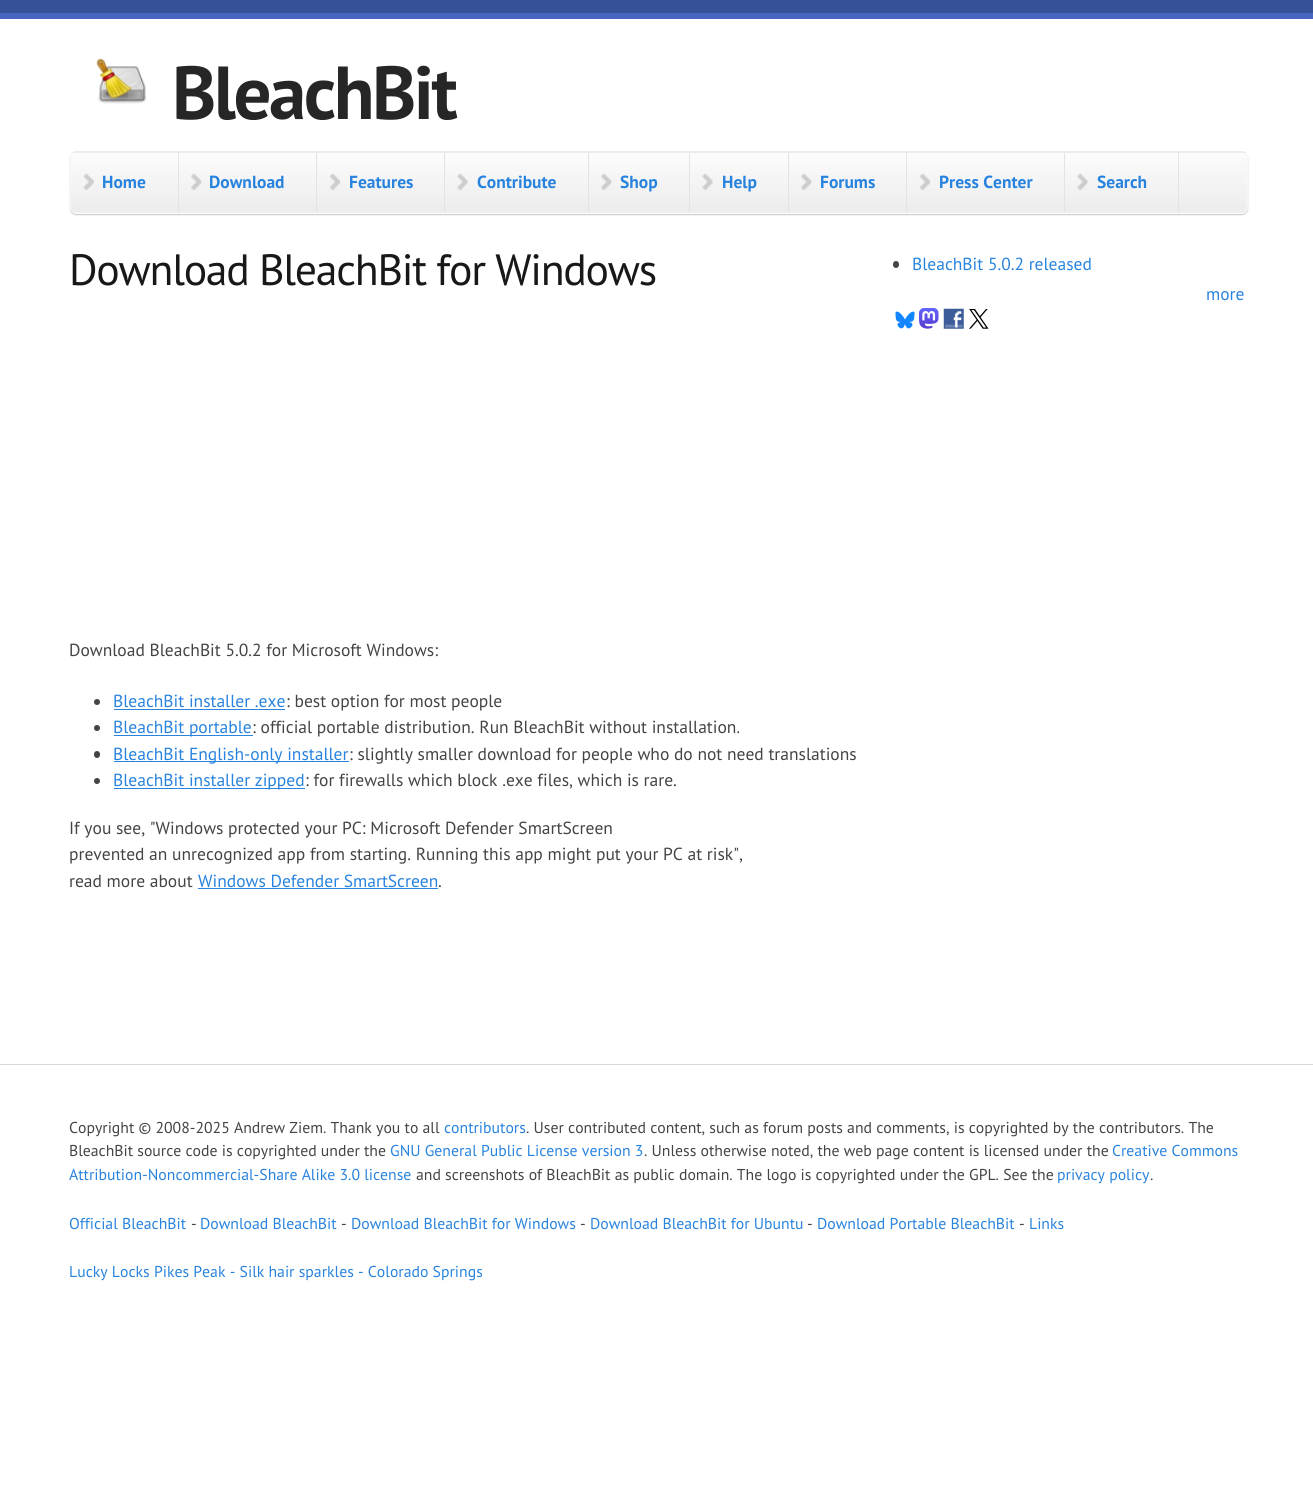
import math
import cairo


def write_spaced(ctx, x, y, s, letter, word):
	ctx.move_to(x, y)
	for ch in s:
		ctx.show_text(ch)
		ctx.rel_move_to(letter + word * (ch == ' '), 0)

def round_path(ctx, x, y, w, h, r):
	ctx.new_sub_path()
	for i, (u, v) in enumerate([(x + w - r, y + h - r), (x + r, y + h - r), (x + r, y + r), (x + w - r, y + r)]):
		ctx.arc(u, v, r, i * math.pi / 2, (i + 1) * math.pi / 2)
	ctx.close_path()

def blur_box(ctx, x, y, w, h, r, blur, alpha):
	ctx.push_group_with_content(cairo.CONTENT_ALPHA)
	ctx.set_operator(cairo.OPERATOR_SOURCE)
	for i in range(15, -16, -2):
		e = blur * i / 6
		if min(w, h) + 2 * e > 0:
			ctx.set_source_rgba(0, 0, 0, alpha * math.erfc((i - 1) / 8.5) / 2)
			round_path(ctx, x - e, y - e, w + 2 * e, h + 2 * e, max(0, min(r + e + blur * .6, min(w, h) / 2 + e)))
			ctx.fill()
	ctx.mask(ctx.pop_group())

def paste(ctx, path, x, y, w, h):
	ctx.save()
	ctx.set_source_surface(cairo.ImageSurface.create_from_png(path), x, y)
	ctx.rectangle(x, y, w, h)
	ctx.fill()
	ctx.restore()

def draw(ctx):
	ctx.set_source_rgb(1, 1, 1)
	ctx.paint()
	ctx.set_source_rgb(0.216, 0.318, 0.6)
	ctx.rectangle(0, 0, 1313, 13)
	ctx.fill()
	ctx.set_source_rgb(0.271, 0.396, 0.745)
	ctx.rectangle(0, 13, 1313, 6)
	ctx.fill()
	paste(ctx, 'media/1.png', 96, 58, 51, 46)
	ctx.select_font_face('PT Sans', cairo.FONT_SLANT_NORMAL, cairo.FONT_WEIGHT_BOLD)
	ctx.set_font_size(75)
	ctx.set_source_rgb(0.149, 0.149, 0.149)
	write_spaced(ctx, 172, 119, 'BleachBit', -2.5, 0)
	ctx.set_source_rgb(0, 0, 0)
	blur_box(ctx, 70, 153, 1178, 62, 6, 0.5, 0.2)
	ctx.save()
	round_path(ctx, 70, 151, 1178, 63, 6)
	ctx.clip()
	gradient = cairo.LinearGradient(659, 92, 659, 153)
	gradient.add_color_stop_rgba(0, 0.988, 0.988, 0.988, 1)
	gradient.add_color_stop_rgba(1, 0.925, 0.925, 0.925, 1)
	ctx.set_source(gradient)
	ctx.rectangle(70, 151, 1178, 2)
	ctx.fill()
	gradient = cairo.LinearGradient(659, 152, 659, 213)
	gradient.add_color_stop_rgba(0, 0.988, 0.988, 0.988, 1)
	gradient.add_color_stop_rgba(1, 0.925, 0.925, 0.925, 1)
	ctx.set_source(gradient)
	ctx.rectangle(70, 153, 1178, 60)
	ctx.fill()
	gradient = cairo.LinearGradient(659, 212, 659, 273)
	gradient.add_color_stop_rgba(0, 0.988, 0.988, 0.988, 1)
	gradient.add_color_stop_rgba(1, 0.925, 0.925, 0.925, 1)
	ctx.set_source(gradient)
	ctx.rectangle(70, 213, 1178, 1)
	ctx.fill()
	ctx.restore()
	ctx.new_path()
	ctx.move_to(72.5, 153.5)
	ctx.curve_to(73.5, 152.5, 75, 152, 76, 152)
	ctx.line_to(1241, 152)
	ctx.curve_to(1242.5, 152, 1244, 152.5, 1245, 153.5)
	ctx.set_source_rgb(0.918, 0.918, 0.918)
	ctx.set_line_width(1.2)
	ctx.stroke()
	ctx.new_path()
	ctx.move_to(1245, 153.5)
	ctx.curve_to(1246.5, 154.5, 1247, 156, 1247, 157.5)
	ctx.line_to(1247, 207.5)
	ctx.curve_to(1247, 209, 1246.5, 210.5, 1245, 211.5)
	ctx.curve_to(1244, 212.5, 1242.5, 213, 1241, 213)
	ctx.line_to(76, 213)
	ctx.curve_to(75, 213, 73.5, 212.5, 72.5, 211.5)
	ctx.curve_to(71, 210.5, 70.5, 209, 70.5, 207.5)
	ctx.line_to(70.5, 157.5)
	ctx.curve_to(70.5, 156, 71, 154.5, 72.5, 153.5)
	ctx.set_source_rgb(0.961, 0.961, 0.961)
	ctx.stroke()
	ctx.set_source_rgb(0.89, 0.89, 0.89)
	ctx.rectangle(178, 153, 1, 60)
	ctx.fill()
	paste(ctx, 'media/2.png', 83, 173, 11, 17)
	ctx.set_source_rgb(0.933, 0.933, 0.933)
	ctx.rectangle(71, 211, 2, 1)
	ctx.fill()
	ctx.set_font_size(17.5)
	ctx.set_source_rgb(0.157, 0.514, 0.871)
	ctx.move_to(102, 188)
	ctx.show_text('Home')
	ctx.set_source_rgb(0.89, 0.89, 0.89)
	ctx.rectangle(316, 153, 1, 60)
	ctx.fill()
	paste(ctx, 'media/3.png', 191, 173, 11, 17)
	ctx.set_source_rgb(0.157, 0.514, 0.871)
	ctx.move_to(209, 188)
	ctx.show_text('Download')
	ctx.set_source_rgb(0.89, 0.89, 0.89)
	ctx.rectangle(444, 153, 1, 60)
	ctx.fill()
	paste(ctx, 'media/4.png', 330, 173, 10, 17)
	ctx.set_source_rgb(0.157, 0.514, 0.871)
	ctx.move_to(349, 188)
	ctx.show_text('Features')
	ctx.set_source_rgb(0.89, 0.89, 0.89)
	ctx.rectangle(588, 153, 1, 60)
	ctx.fill()
	paste(ctx, 'media/5.png', 457, 173, 11, 17)
	ctx.set_source_rgb(0.157, 0.514, 0.871)
	ctx.move_to(477, 188)
	ctx.show_text('Contribute')
	ctx.set_source_rgb(0.89, 0.89, 0.89)
	ctx.rectangle(689, 153, 1, 60)
	ctx.fill()
	paste(ctx, 'media/3.png', 601, 173, 11, 17)
	ctx.set_source_rgb(0.157, 0.514, 0.871)
	ctx.move_to(620, 188)
	ctx.show_text('Shop')
	ctx.set_source_rgb(0.89, 0.89, 0.89)
	ctx.rectangle(788, 153, 1, 60)
	ctx.fill()
	paste(ctx, 'media/5.png', 702, 173, 11, 17)
	ctx.set_source_rgb(0.157, 0.514, 0.871)
	ctx.move_to(722, 188)
	ctx.show_text('Help')
	ctx.set_source_rgb(0.89, 0.89, 0.89)
	ctx.rectangle(906, 153, 1, 60)
	ctx.fill()
	paste(ctx, 'media/3.png', 801, 173, 11, 17)
	ctx.set_source_rgb(0.157, 0.514, 0.871)
	ctx.move_to(820, 188)
	ctx.show_text('Forums')
	ctx.set_source_rgb(0.89, 0.89, 0.89)
	ctx.rectangle(1064, 153, 1, 60)
	ctx.fill()
	paste(ctx, 'media/4.png', 920, 173, 10, 17)
	ctx.set_source_rgb(0.157, 0.514, 0.871)
	ctx.move_to(939, 188)
	ctx.show_text('Press Center')
	ctx.set_source_rgb(0.89, 0.89, 0.89)
	ctx.rectangle(1178, 153, 1, 60)
	ctx.fill()
	paste(ctx, 'media/6.png', 1077, 173, 11, 17)
	ctx.set_source_rgb(0.157, 0.514, 0.871)
	ctx.move_to(1097, 188)
	ctx.show_text('Search')
	ctx.select_font_face('PT Sans')
	ctx.set_font_size(43.75)
	ctx.set_source_rgb(0.094, 0.094, 0.094)
	write_spaced(ctx, 69, 285, 'Download BleachBit for Windows', -1.25, 0)
	ctx.set_font_size(17.5)
	ctx.set_source_rgb(0.267, 0.267, 0.267)
	ctx.move_to(69, 656)
	ctx.show_text('Download BleachBit 5.0.2 for Microsoft Windows:')
	ctx.new_path()
	ctx.arc(97, 702, 3, 0, 2 * math.pi)
	ctx.fill()
	ctx.set_source_rgb(0.157, 0.514, 0.871)
	ctx.move_to(113, 707)
	ctx.show_text('BleachBit installer .exe')
	ctx.rectangle(114, 709, 171, 1)
	ctx.fill()
	ctx.set_source_rgb(0.267, 0.267, 0.267)
	ctx.move_to(286, 707)
	ctx.show_text(': best option for most people')
	ctx.new_path()
	ctx.arc(97, 728, 3, 0, 2 * math.pi)
	ctx.fill()
	ctx.set_source_rgb(0.157, 0.514, 0.871)
	ctx.rectangle(114, 735, 139, 1)
	ctx.fill()
	ctx.move_to(113, 733)
	ctx.show_text('BleachBit portable')
	ctx.set_source_rgb(0.267, 0.267, 0.267)
	ctx.move_to(252, 733)
	ctx.show_text(': official portable distribution. Run BleachBit without installation.')
	round_path(ctx, 94, 751, 6, 7, 3)
	ctx.fill()
	ctx.set_source_rgb(0.157, 0.514, 0.871)
	ctx.rectangle(114, 761, 235, 1)
	ctx.fill()
	ctx.move_to(113, 760)
	ctx.show_text('BleachBit English-only installer')
	ctx.set_source_rgb(0.267, 0.267, 0.267)
	ctx.move_to(349, 760)
	ctx.show_text(': slightly smaller download for people who do not need translations')
	ctx.new_path()
	ctx.arc(97, 781, 3, 0, 2 * math.pi)
	ctx.fill()
	ctx.set_source_rgb(0.157, 0.514, 0.871)
	ctx.rectangle(114, 788, 191, 1)
	ctx.fill()
	ctx.move_to(113, 786)
	ctx.show_text('BleachBit installer zipped')
	ctx.set_source_rgb(0.267, 0.267, 0.267)
	for x, y, s in [
		(305, 786, ': for firewalls which block .exe files, which is rare.'),
		(69, 834, 'If you see, "Windows protected your PC: Microsoft Defender SmartScreen'),
		(69, 860, 'prevented an unrecognized app from starting. Running this app might put your PC at risk",'),
		(69, 887, 'read more about'),
	]:
		ctx.move_to(x, y)
		ctx.show_text(s)
	ctx.set_source_rgb(0.157, 0.514, 0.871)
	ctx.move_to(198, 887)
	ctx.show_text('Windows Defender SmartScreen')
	ctx.rectangle(198, 888, 240, 1)
	ctx.fill()
	ctx.set_source_rgb(0.267, 0.267, 0.267)
	ctx.move_to(438, 887)
	ctx.show_text('.')
	round_path(ctx, 893, 261, 6, 7, 3)
	ctx.fill()
	ctx.set_source_rgb(0.157, 0.514, 0.871)
	ctx.move_to(912, 270)
	ctx.show_text('BleachBit 5.0.2 released')
	ctx.move_to(1206, 300)
	ctx.show_text('more')
	paste(ctx, 'media/7.png', 895, 311, 20, 18)
	paste(ctx, 'media/8.png', 919, 308, 20, 21)
	paste(ctx, 'media/9.png', 943, 308, 21, 21)
	paste(ctx, 'media/10.png', 969, 309, 20, 20)
	ctx.set_source_rgb(0.839, 0.839, 0.839)
	ctx.rectangle(0, 1064, 1313, 1)
	ctx.fill()
	ctx.set_font_size(15.75)
	ctx.set_source_rgb(0.267, 0.267, 0.267)
	ctx.move_to(69, 1133)
	ctx.show_text('Copyright © 2008-2025 Andrew Ziem. Thank you to all')
	ctx.set_source_rgb(0.157, 0.514, 0.871)
	ctx.move_to(444, 1133)
	ctx.show_text('contributors')
	ctx.set_source_rgb(0.267, 0.267, 0.267)
	ctx.move_to(526, 1133)
	ctx.show_text('. User contributed content, such as forum posts and comments, is copyrighted by the contributors. The')
	ctx.move_to(69, 1156)
	ctx.show_text('BleachBit source code is copyrighted under the')
	ctx.set_source_rgb(0.157, 0.514, 0.871)
	ctx.move_to(390, 1156)
	ctx.show_text('GNU General Public License version 3')
	ctx.set_source_rgb(0.267, 0.267, 0.267)
	ctx.move_to(644, 1156)
	ctx.show_text('. Unless otherwise noted, the web page content is licensed under the')
	ctx.set_source_rgb(0.157, 0.514, 0.871)
	ctx.move_to(1112, 1156)
	ctx.show_text('Creative Commons')
	ctx.move_to(69, 1180)
	ctx.show_text('Attribution-Noncommercial-Share Alike 3.0 license')
	ctx.set_source_rgb(0.267, 0.267, 0.267)
	ctx.move_to(416, 1180)
	ctx.show_text('and screenshots of BleachBit as public domain. The logo is copyrighted under the GPL. See the')
	ctx.set_source_rgb(0.157, 0.514, 0.871)
	ctx.move_to(1057, 1180)
	ctx.show_text('privacy policy')
	ctx.set_source_rgb(0.267, 0.267, 0.267)
	ctx.move_to(1150, 1180)
	ctx.show_text('.')
	ctx.set_source_rgb(0.157, 0.514, 0.871)
	ctx.move_to(69, 1229)
	ctx.show_text('Official BleachBit')
	ctx.set_source_rgb(0.267, 0.267, 0.267)
	ctx.move_to(191, 1229)
	ctx.show_text('-')
	ctx.set_source_rgb(0.157, 0.514, 0.871)
	ctx.move_to(200, 1229)
	ctx.show_text('Download BleachBit')
	ctx.set_source_rgb(0.267, 0.267, 0.267)
	ctx.move_to(341, 1229)
	ctx.show_text('-')
	ctx.set_source_rgb(0.157, 0.514, 0.871)
	ctx.move_to(351, 1229)
	ctx.show_text('Download BleachBit for Windows')
	ctx.set_source_rgb(0.267, 0.267, 0.267)
	ctx.move_to(580, 1229)
	ctx.show_text('-')
	ctx.set_source_rgb(0.157, 0.514, 0.871)
	ctx.move_to(590, 1229)
	ctx.show_text('Download BleachBit for Ubuntu')
	ctx.set_source_rgb(0.267, 0.267, 0.267)
	ctx.move_to(807, 1229)
	ctx.show_text('-')
	ctx.set_source_rgb(0.157, 0.514, 0.871)
	ctx.move_to(817, 1229)
	ctx.show_text('Download Portable BleachBit')
	ctx.set_source_rgb(0.267, 0.267, 0.267)
	ctx.move_to(1019, 1229)
	ctx.show_text('-')
	ctx.set_source_rgb(0.157, 0.514, 0.871)
	ctx.move_to(1029, 1229)
	ctx.show_text('Links')
	ctx.move_to(69, 1277)
	ctx.show_text('Lucky Locks Pikes Peak - Silk hair sparkles - Colorado Springs')


surface = cairo.ImageSurface(cairo.FORMAT_RGB24, 1313, 1506)
ctx = cairo.Context(surface)
options = cairo.FontOptions()
options.set_hint_metrics(cairo.HINT_METRICS_OFF)
options.set_hint_style(cairo.HINT_STYLE_NONE)
ctx.set_font_options(options)
ctx.set_miter_limit(4)
draw(ctx)
surface.write_to_png('image.png')
